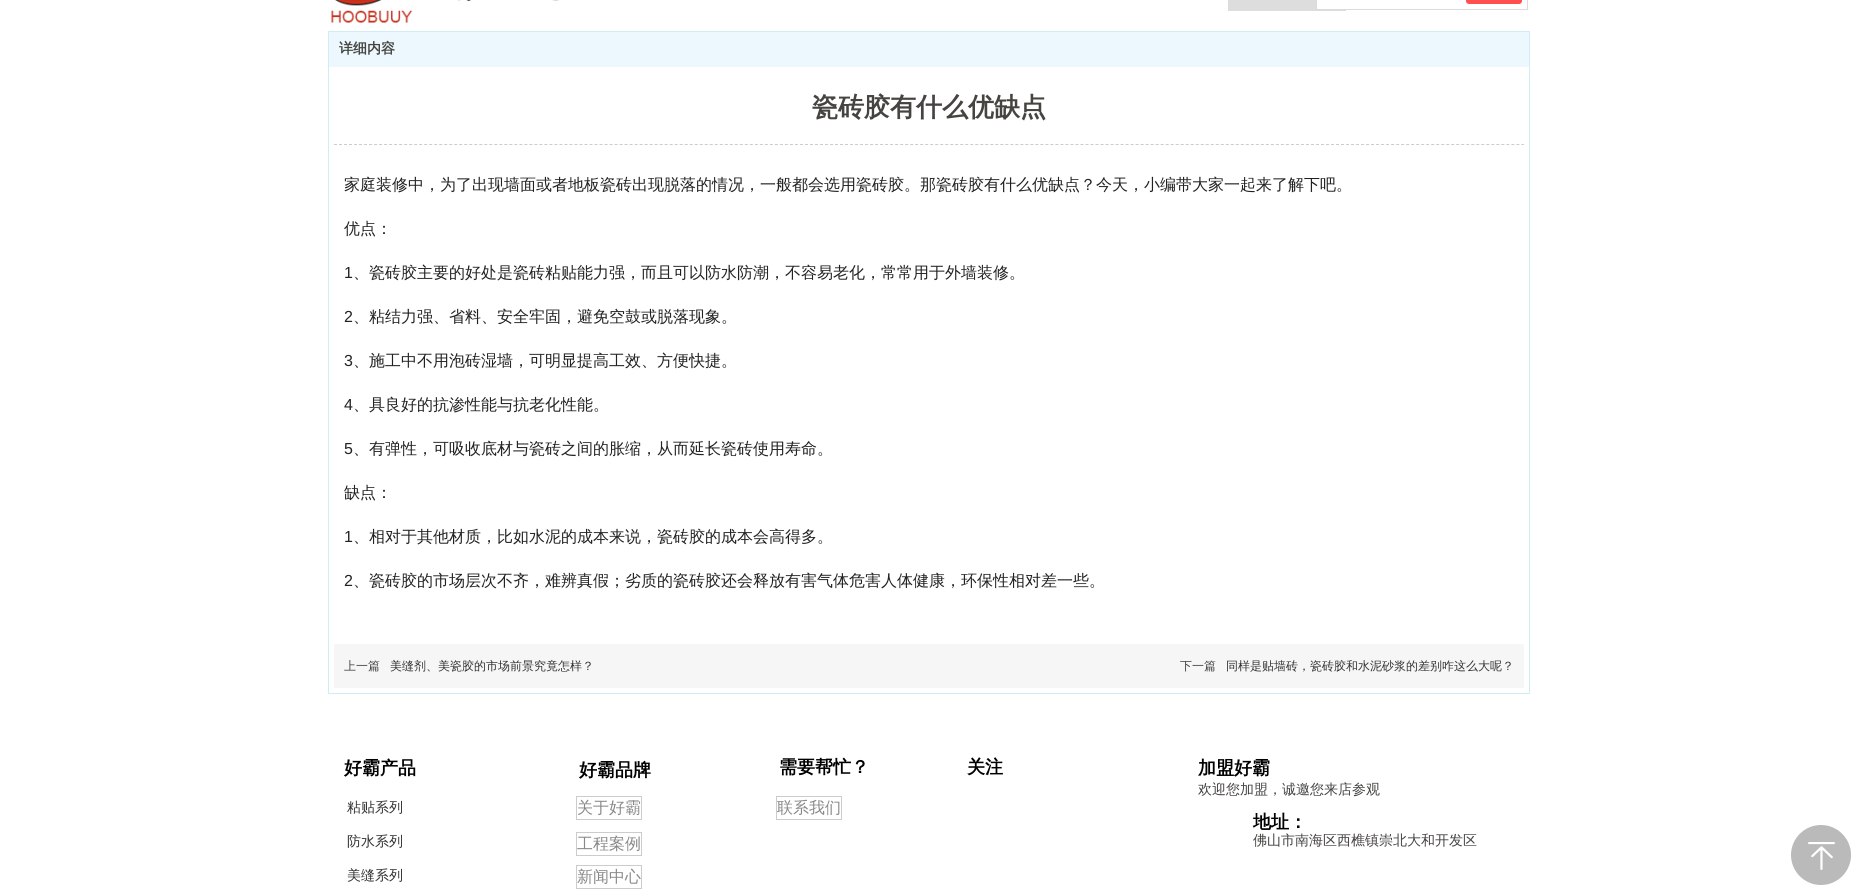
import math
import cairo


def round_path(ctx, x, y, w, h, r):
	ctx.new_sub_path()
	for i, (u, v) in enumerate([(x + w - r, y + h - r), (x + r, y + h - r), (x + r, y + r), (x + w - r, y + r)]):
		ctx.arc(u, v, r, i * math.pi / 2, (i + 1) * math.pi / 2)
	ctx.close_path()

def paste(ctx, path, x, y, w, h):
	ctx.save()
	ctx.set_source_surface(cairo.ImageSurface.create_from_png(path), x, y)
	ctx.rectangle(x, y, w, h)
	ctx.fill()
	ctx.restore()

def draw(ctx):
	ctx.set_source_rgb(1, 1, 1)
	ctx.paint()
	paste(ctx, 'media/1.png', 330, 0, 229, 23)
	ctx.set_source_rgb(0.867, 0.867, 0.867)
	ctx.rectangle(1228, 0, 118, 11)
	ctx.fill()
	ctx.set_source_rgb(1, 1, 1)
	ctx.rectangle(1317, 0, 29, 9)
	ctx.fill()
	ctx.rectangle(1316.5, -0.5, 211, 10)
	ctx.set_source_rgb(0.859, 0.859, 0.859)
	ctx.set_line_width(1)
	ctx.stroke()
	ctx.set_source_rgb(1, 0.31, 0.306)
	round_path(ctx, 1466, -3, 56, 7, 3)
	ctx.fill()
	ctx.rectangle(328.5, 31.5, 1201, 662)
	ctx.set_source_rgb(0.812, 0.922, 0.965)
	ctx.stroke()
	ctx.set_source_rgb(0.925, 0.969, 0.992)
	ctx.rectangle(329, 32, 1200, 35)
	ctx.fill()
	ctx.select_font_face('WenQuanYi Zen Hei', cairo.FONT_SLANT_NORMAL, cairo.FONT_WEIGHT_BOLD)
	ctx.set_font_size(14)
	ctx.set_source_rgb(0.271, 0.267, 0.251)
	ctx.move_to(339, 53)
	ctx.show_text('详细内容')
	ctx.new_path()
	ctx.move_to(334, 144.5)
	ctx.line_to(1524, 144.5)
	ctx.set_source_rgb(0.8, 0.8, 0.8)
	ctx.set_dash([3, 2.01])
	ctx.stroke()
	ctx.set_font_size(26)
	ctx.set_source_rgb(0.271, 0.267, 0.251)
	ctx.move_to(812, 116)
	ctx.show_text('瓷砖胶有什么优缺点')
	ctx.select_font_face('WenQuanYi Zen Hei Medium')
	ctx.set_font_size(16)
	ctx.set_source_rgb(0.133, 0.133, 0.133)
	ctx.move_to(344, 190)
	ctx.show_text('家庭装修中，为了出现墙面或者地板瓷砖出现脱落的情况，一般都会选用瓷砖胶。那瓷砖胶有什么优缺点？今天，小编带大家一起来了解下吧。')
	ctx.move_to(344, 234)
	ctx.show_text('优点：')
	ctx.select_font_face('Liberation Sans')
	ctx.move_to(344, 278)
	ctx.show_text('1')
	ctx.select_font_face('WenQuanYi Zen Hei Medium')
	ctx.move_to(353, 278)
	ctx.show_text('、瓷砖胶主要的好处是瓷砖粘贴能力强，而且可以防水防潮，不容易老化，常常用于外墙装修。')
	ctx.select_font_face('Liberation Sans')
	ctx.move_to(344, 322)
	ctx.show_text('2')
	ctx.select_font_face('WenQuanYi Zen Hei Medium')
	ctx.move_to(353, 322)
	ctx.show_text('、粘结力强、省料、安全牢固，避免空鼓或脱落现象。')
	ctx.select_font_face('Liberation Sans')
	ctx.move_to(344, 366)
	ctx.show_text('3')
	ctx.select_font_face('WenQuanYi Zen Hei Medium')
	ctx.move_to(353, 366)
	ctx.show_text('、施工中不用泡砖湿墙，可明显提高工效、方便快捷。')
	ctx.select_font_face('Liberation Sans')
	ctx.move_to(344, 410)
	ctx.show_text('4')
	ctx.select_font_face('WenQuanYi Zen Hei Medium')
	ctx.move_to(353, 410)
	ctx.show_text('、具良好的抗渗性能与抗老化性能。')
	ctx.select_font_face('Liberation Sans')
	ctx.move_to(344, 454)
	ctx.show_text('5')
	ctx.select_font_face('WenQuanYi Zen Hei Medium')
	ctx.move_to(353, 454)
	ctx.show_text('、有弹性，可吸收底材与瓷砖之间的胀缩，从而延长瓷砖使用寿命。')
	ctx.move_to(344, 498)
	ctx.show_text('缺点：')
	ctx.select_font_face('Liberation Sans')
	ctx.move_to(344, 542)
	ctx.show_text('1')
	ctx.select_font_face('WenQuanYi Zen Hei Medium')
	ctx.move_to(353, 542)
	ctx.show_text('、相对于其他材质，比如水泥的成本来说，瓷砖胶的成本会高得多。')
	ctx.select_font_face('Liberation Sans')
	ctx.move_to(344, 586)
	ctx.show_text('2')
	ctx.select_font_face('WenQuanYi Zen Hei Medium')
	ctx.move_to(353, 586)
	ctx.show_text('、瓷砖胶的市场层次不齐，难辨真假；劣质的瓷砖胶还会释放有害气体危害人体健康，环保性相对差一些。')
	ctx.set_source_rgb(0.961, 0.961, 0.961)
	ctx.rectangle(334, 644, 1190, 44)
	ctx.fill()
	ctx.set_font_size(12)
	ctx.set_source_rgb(0.271, 0.267, 0.251)
	ctx.move_to(344, 670)
	ctx.show_text('上一篇')
	ctx.set_source_rgb(0.2, 0.2, 0.2)
	ctx.move_to(390, 670)
	ctx.show_text('美缝剂、美瓷胶的市场前景究竟怎样？')
	ctx.set_source_rgb(0.271, 0.267, 0.251)
	ctx.move_to(1180, 670)
	ctx.show_text('下一篇')
	ctx.set_source_rgb(0.2, 0.2, 0.2)
	ctx.move_to(1226, 670)
	ctx.show_text('同样是贴墙砖，瓷砖胶和水泥砂浆的差别咋这么大呢？')
	ctx.select_font_face('WenQuanYi Zen Hei', cairo.FONT_SLANT_NORMAL, cairo.FONT_WEIGHT_BOLD)
	ctx.set_font_size(18)
	ctx.set_source_rgb(0, 0, 0)
	for x, y, s in [
		(344, 774, '好霸产品'),
		(579, 776, '好霸品牌'),
		(779, 773, '需要帮忙？'),
		(967, 773, '关注'),
		(1198, 774, '加盟好霸'),
	]:
		ctx.move_to(x, y)
		ctx.show_text(s)
	ctx.select_font_face('WenQuanYi Zen Hei Medium')
	ctx.set_font_size(14)
	ctx.set_source_rgb(0.271, 0.267, 0.251)
	ctx.move_to(1198, 794)
	ctx.show_text('欢迎您加盟，诚邀您来店参观')
	ctx.set_source_rgb(0.2, 0.2, 0.2)
	for x, y, s in [
		(347, 812, '粘贴系列'),
		(347, 846, '防水系列'),
		(347, 880, '美缝系列'),
	]:
		ctx.move_to(x, y)
		ctx.show_text(s)
	ctx.rectangle(576.5, 796.5, 65, 23)
	ctx.set_source_rgb(0.8, 0.8, 0.8)
	ctx.set_dash([])
	ctx.stroke()
	ctx.set_font_size(16)
	ctx.set_source_rgb(0.533, 0.533, 0.533)
	ctx.move_to(577, 813)
	ctx.show_text('关于好霸')
	ctx.rectangle(776.5, 796.5, 65, 23)
	ctx.set_source_rgb(0.8, 0.8, 0.8)
	ctx.stroke()
	ctx.set_source_rgb(0.533, 0.533, 0.533)
	ctx.move_to(777, 813)
	ctx.show_text('联系我们')
	ctx.select_font_face('WenQuanYi Zen Hei', cairo.FONT_SLANT_NORMAL, cairo.FONT_WEIGHT_BOLD)
	ctx.set_font_size(18)
	ctx.set_source_rgb(0, 0, 0)
	ctx.move_to(1253, 828)
	ctx.show_text('地址：')
	ctx.rectangle(576.5, 832.5, 65, 23)
	ctx.set_source_rgb(0.8, 0.8, 0.8)
	ctx.stroke()
	ctx.select_font_face('WenQuanYi Zen Hei Medium')
	ctx.set_font_size(16)
	ctx.set_source_rgb(0.533, 0.533, 0.533)
	ctx.move_to(577, 849)
	ctx.show_text('工程案例')
	ctx.set_font_size(14)
	ctx.set_source_rgb(0.271, 0.267, 0.251)
	ctx.move_to(1253, 845)
	ctx.show_text('佛山市南海区西樵镇崇北大和开发区')
	ctx.rectangle(576.5, 865.5, 65, 23)
	ctx.set_source_rgb(0.8, 0.8, 0.8)
	ctx.stroke()
	ctx.set_font_size(16)
	ctx.set_source_rgb(0.533, 0.533, 0.533)
	ctx.move_to(577, 882)
	ctx.show_text('新闻中心')
	paste(ctx, 'media/2.png', 1791, 825, 60, 60)


surface = cairo.ImageSurface(cairo.FORMAT_RGB24, 1856, 890)
ctx = cairo.Context(surface)
options = cairo.FontOptions()
options.set_hint_metrics(cairo.HINT_METRICS_OFF)
options.set_hint_style(cairo.HINT_STYLE_NONE)
ctx.set_font_options(options)
ctx.set_miter_limit(4)
draw(ctx)
surface.write_to_png('image.png')
